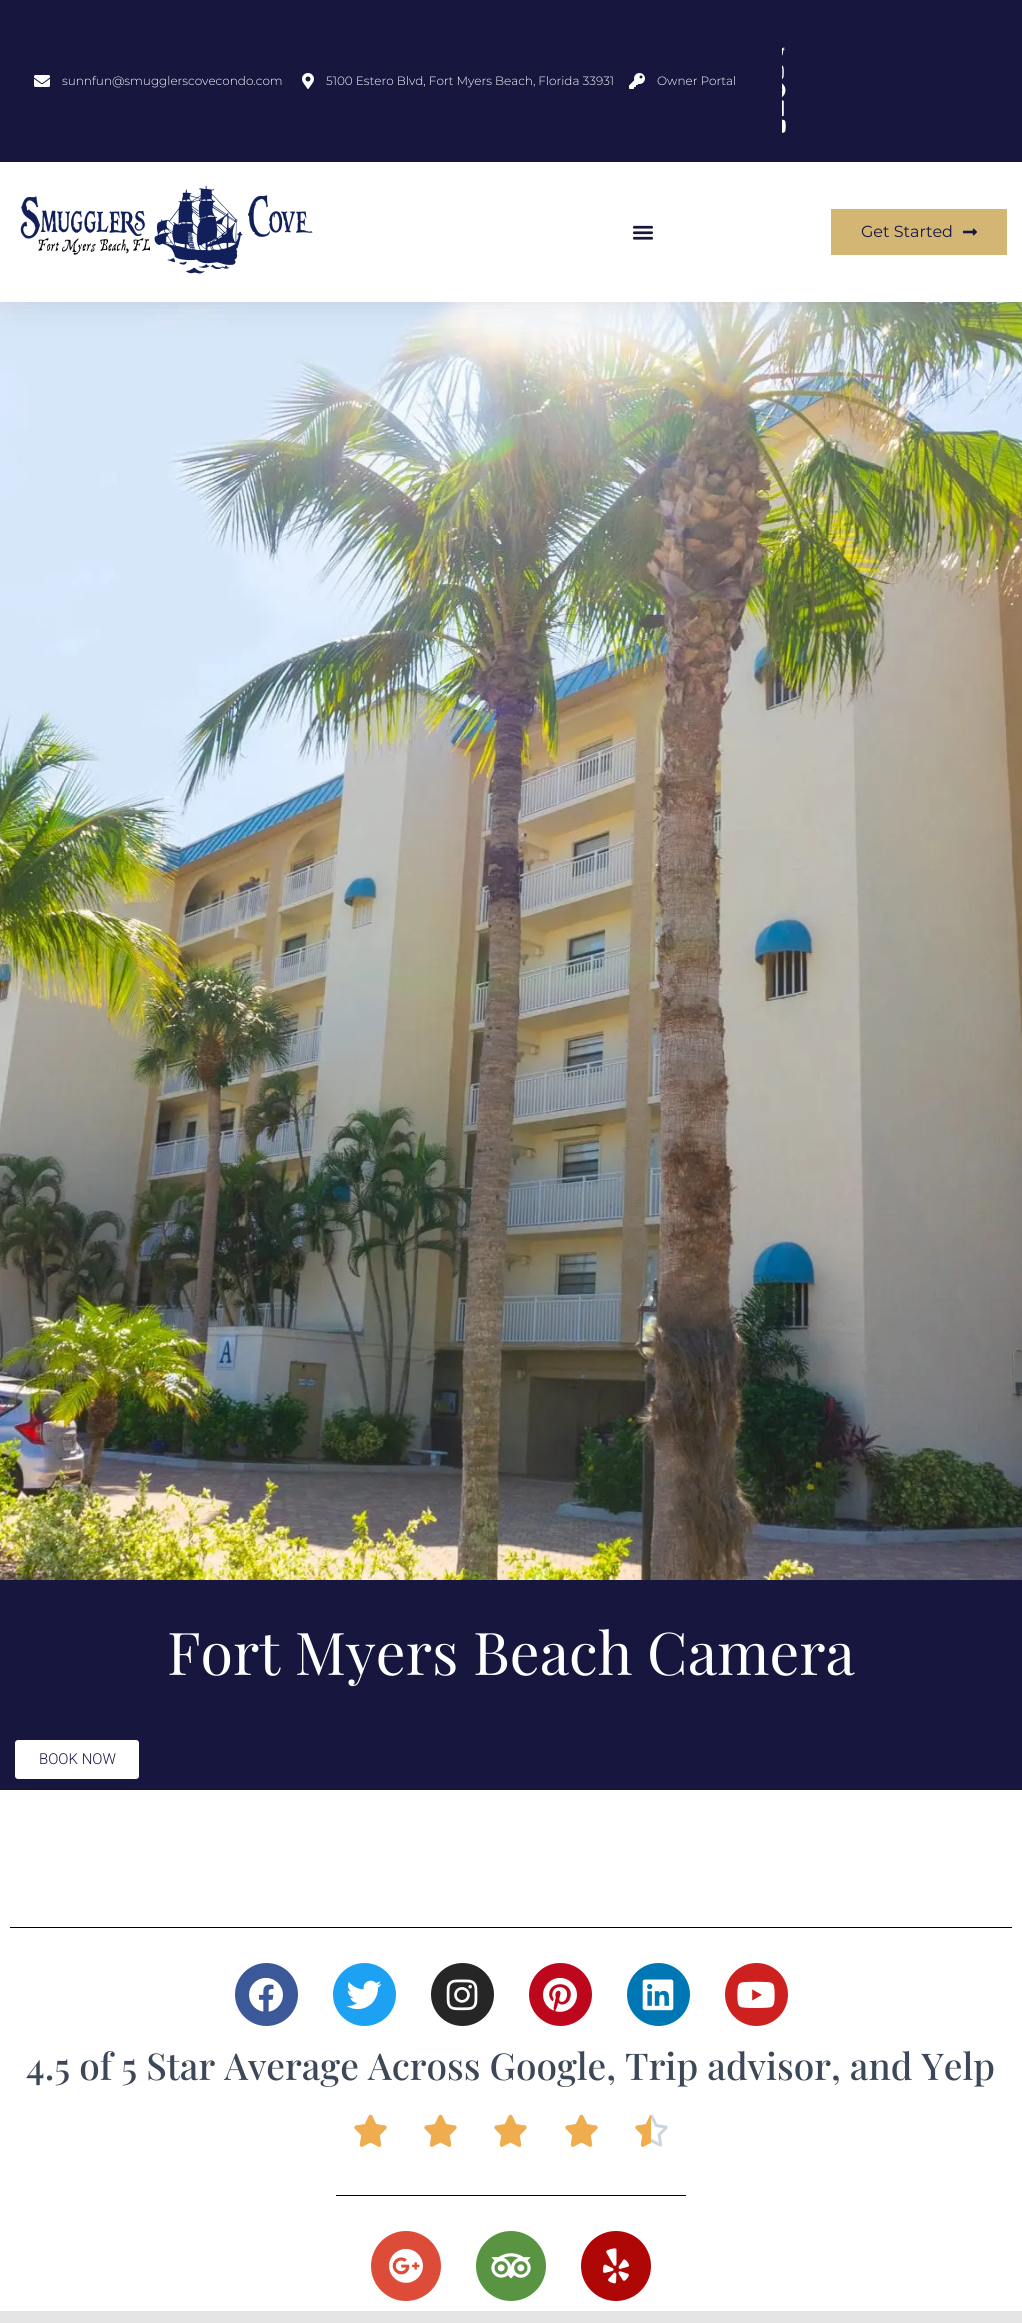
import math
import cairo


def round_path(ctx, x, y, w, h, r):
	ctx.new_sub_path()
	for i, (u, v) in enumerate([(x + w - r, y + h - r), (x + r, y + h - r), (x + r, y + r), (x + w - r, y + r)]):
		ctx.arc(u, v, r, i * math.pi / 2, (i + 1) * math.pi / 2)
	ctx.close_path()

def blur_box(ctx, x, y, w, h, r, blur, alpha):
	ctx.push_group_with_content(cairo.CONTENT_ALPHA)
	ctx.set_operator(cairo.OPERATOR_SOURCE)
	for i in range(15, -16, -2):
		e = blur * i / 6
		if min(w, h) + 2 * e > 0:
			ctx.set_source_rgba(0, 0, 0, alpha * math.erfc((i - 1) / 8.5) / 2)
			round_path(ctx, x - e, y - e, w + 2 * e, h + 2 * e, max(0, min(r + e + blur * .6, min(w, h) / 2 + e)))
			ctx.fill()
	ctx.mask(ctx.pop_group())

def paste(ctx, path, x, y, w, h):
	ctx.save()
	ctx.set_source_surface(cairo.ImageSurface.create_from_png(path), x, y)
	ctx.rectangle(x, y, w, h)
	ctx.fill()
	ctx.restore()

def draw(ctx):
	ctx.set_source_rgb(0.898, 0.898, 0.898)
	ctx.paint()
	paste(ctx, 'media/12.png', 0, 302, 1022, 1278)
	ctx.set_source_rgb(0, 0, 0)
	blur_box(ctx, 0, 5, 1022, 302, 0, 15, 0.1)
	ctx.set_source_rgb(0.086, 0.086, 0.247)
	ctx.rectangle(0, 0, 1022, 162)
	ctx.fill()
	paste(ctx, 'media/1.png', 34, 75, 16, 12)
	ctx.select_font_face('Montserrat Light')
	ctx.set_font_size(12)
	ctx.set_source_rgb(1, 1, 1)
	ctx.move_to(62, 85)
	ctx.show_text('sunnfun@smugglerscovecondo.com')
	paste(ctx, 'media/2.png', 302, 73, 12, 16)
	ctx.move_to(326, 85)
	ctx.show_text('5100 Estero Blvd, Fort Myers Beach, Florida 33931')
	paste(ctx, 'media/3.png', 629, 73, 16, 16)
	ctx.move_to(657, 85)
	ctx.show_text('Owner Portal')
	paste(ctx, 'media/4.png', 782, 47, 3, 9)
	paste(ctx, 'media/5.png', 782, 65, 2, 14)
	paste(ctx, 'media/6.png', 782, 83, 4, 14)
	paste(ctx, 'media/7.png', 782, 100, 2, 17)
	paste(ctx, 'media/8.png', 782, 119, 4, 14)
	ctx.rectangle(0, 162, 1022, 140)
	ctx.fill()
	paste(ctx, 'media/9.png', 20, 185, 293, 89)
	paste(ctx, 'media/10.png', 632, 225, 22, 15)
	ctx.set_source_rgb(0.827, 0.71, 0.455)
	ctx.rectangle(831, 209, 176, 46)
	ctx.fill()
	ctx.select_font_face('Montserrat')
	ctx.set_font_size(16)
	ctx.set_source_rgb(0.086, 0.086, 0.247)
	ctx.move_to(861, 237)
	ctx.show_text('Get Started')
	paste(ctx, 'media/11.png', 963, 228, 14, 8)
	ctx.set_source_rgb(1, 1, 1)
	ctx.rectangle(0, 1790, 1022, 521)
	ctx.fill()
	ctx.set_source_rgb(0.086, 0.086, 0.247)
	ctx.rectangle(0, 1580, 1022, 210)
	ctx.fill()
	ctx.select_font_face('Playfair Display')
	ctx.set_font_size(59)
	ctx.set_source_rgb(1, 1, 1)
	ctx.move_to(167, 1675)
	ctx.show_text('Fort Myers Beach Camera')
	round_path(ctx, 15, 1740, 124, 39, 3)
	ctx.fill()
	ctx.select_font_face('Roboto Light')
	ctx.set_font_size(15)
	ctx.set_source_rgb(0.086, 0.086, 0.247)
	ctx.move_to(39, 1764)
	ctx.show_text('BOOK NOW')
	ctx.set_source_rgb(0, 0, 0)
	ctx.rectangle(10, 1927, 1002, 1)
	ctx.fill()
	ctx.set_source_rgb(0.231, 0.349, 0.596)
	ctx.arc(266.5, 1994.5, 31.5, 0, 2 * math.pi)
	ctx.fill()
	paste(ctx, 'media/13.png', 249, 1977, 34, 35)
	ctx.set_source_rgb(0.114, 0.631, 0.949)
	ctx.arc(364.5, 1994.5, 31.5, 0, 2 * math.pi)
	ctx.fill()
	paste(ctx, 'media/14.png', 346, 1980, 36, 30)
	ctx.set_source_rgb(0.149, 0.149, 0.149)
	ctx.arc(462.5, 1994.5, 31.5, 0, 2 * math.pi)
	ctx.fill()
	paste(ctx, 'media/15.png', 446, 1979, 32, 32)
	ctx.set_source_rgb(0.741, 0.031, 0.11)
	ctx.arc(560.5, 1994.5, 31.5, 0, 2 * math.pi)
	ctx.fill()
	paste(ctx, 'media/16.png', 543, 1977, 34, 35)
	ctx.set_source_rgb(0, 0.467, 0.71)
	ctx.arc(658.5, 1994.5, 31.5, 0, 2 * math.pi)
	ctx.fill()
	paste(ctx, 'media/17.png', 642, 1979, 32, 32)
	ctx.set_source_rgb(0.804, 0.125, 0.122)
	ctx.arc(756.5, 1994.5, 31.5, 0, 2 * math.pi)
	ctx.fill()
	paste(ctx, 'media/18.png', 737, 1981, 38, 27)
	ctx.select_font_face('Playfair Display Medium')
	ctx.set_font_size(37)
	ctx.set_source_rgb(0.235, 0.282, 0.345)
	ctx.move_to(26, 2080)
	ctx.show_text('4.5 of 5 Star Average Across Google, Trip advisor, and Yelp')
	paste(ctx, 'media/19.png', 354, 2114, 33, 33)
	paste(ctx, 'media/20.png', 354, 2114, 33, 33)
	paste(ctx, 'media/19.png', 424, 2114, 33, 33)
	paste(ctx, 'media/20.png', 424, 2114, 33, 33)
	paste(ctx, 'media/19.png', 494, 2114, 33, 33)
	paste(ctx, 'media/20.png', 494, 2114, 33, 33)
	paste(ctx, 'media/19.png', 565, 2114, 33, 33)
	paste(ctx, 'media/20.png', 565, 2114, 33, 33)
	paste(ctx, 'media/19.png', 635, 2114, 33, 33)
	paste(ctx, 'media/21.png', 635, 2114, 16, 33)
	ctx.set_source_rgb(0, 0, 0)
	ctx.rectangle(336, 2195, 350, 1)
	ctx.fill()
	ctx.set_source_rgb(0.867, 0.294, 0.224)
	ctx.arc(406, 2266, 35, 0, 2 * math.pi)
	ctx.fill()
	paste(ctx, 'media/22.png', 389, 2248, 34, 35)
	ctx.set_source_rgb(0.345, 0.58, 0.259)
	ctx.arc(511, 2266, 35, 0, 2 * math.pi)
	ctx.fill()
	paste(ctx, 'media/23.png', 491, 2253, 40, 26)
	ctx.set_source_rgb(0.686, 0.024, 0.024)
	ctx.arc(616, 2266, 35, 0, 2 * math.pi)
	ctx.fill()
	paste(ctx, 'media/24.png', 602, 2248, 27, 36)


surface = cairo.ImageSurface(cairo.FORMAT_RGB24, 1022, 2323)
ctx = cairo.Context(surface)
options = cairo.FontOptions()
options.set_hint_metrics(cairo.HINT_METRICS_OFF)
options.set_hint_style(cairo.HINT_STYLE_NONE)
ctx.set_font_options(options)
ctx.set_miter_limit(4)
draw(ctx)
surface.write_to_png('image.png')
